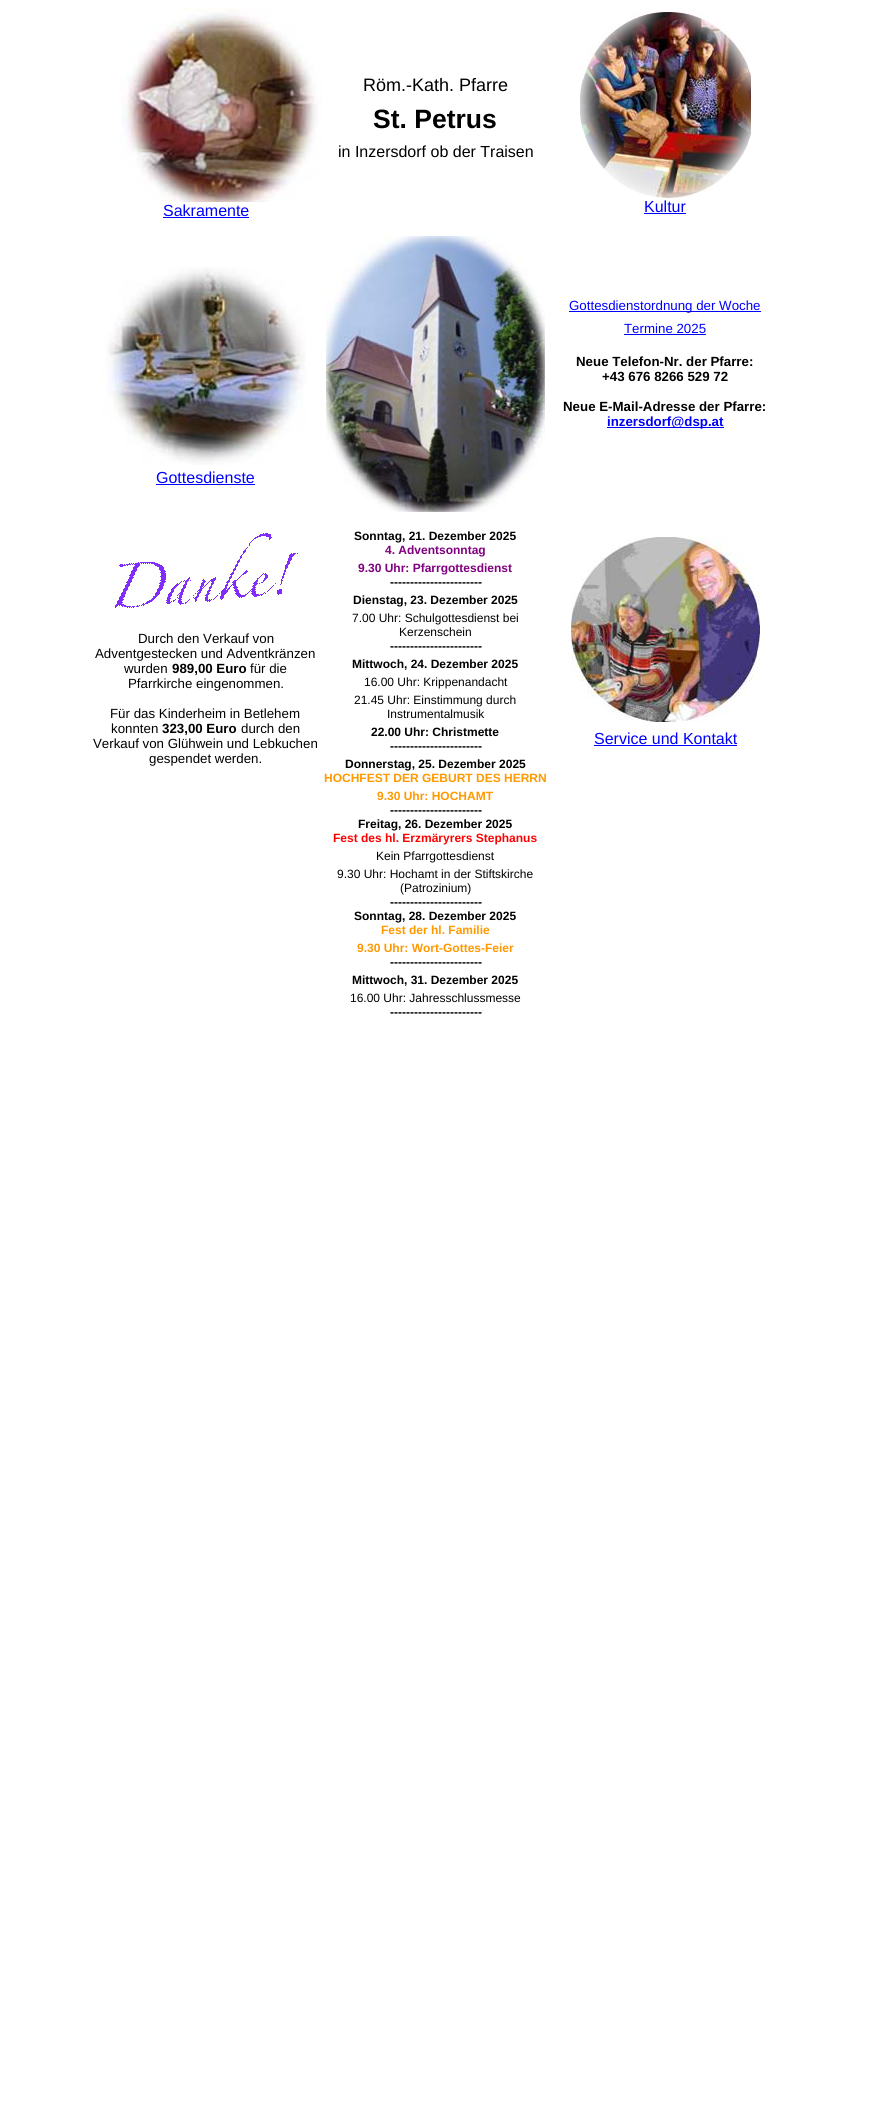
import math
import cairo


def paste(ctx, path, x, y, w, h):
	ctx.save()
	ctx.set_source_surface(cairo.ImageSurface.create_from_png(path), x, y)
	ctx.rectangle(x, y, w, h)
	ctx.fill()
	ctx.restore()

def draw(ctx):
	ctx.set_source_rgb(1, 1, 1)
	ctx.paint()
	ctx.select_font_face('Liberation Sans')
	ctx.set_font_size(18)
	ctx.set_source_rgb(0, 0, 0)
	ctx.move_to(363, 91)
	ctx.show_text('Röm.-Kath. Pfarre')
	ctx.select_font_face('Liberation Sans', cairo.FONT_SLANT_NORMAL, cairo.FONT_WEIGHT_BOLD)
	ctx.set_font_size(26.5)
	ctx.move_to(373, 128)
	ctx.show_text('St. Petrus')
	ctx.select_font_face('Liberation Sans')
	ctx.set_font_size(16)
	ctx.move_to(338, 157)
	ctx.show_text('in Inzersdorf ob der Traisen')
	paste(ctx, 'media/1.png', 120, 8, 202, 194)
	ctx.set_source_rgb(0, 0, 1)
	ctx.move_to(163, 216)
	ctx.show_text('Sakramente')
	ctx.rectangle(163, 217, 86, 1)
	ctx.fill()
	paste(ctx, 'media/2.png', 580, 12, 171, 186)
	ctx.move_to(644, 212)
	ctx.show_text('Kultur')
	ctx.rectangle(644, 213, 42, 1)
	ctx.fill()
	paste(ctx, 'media/3.png', 326, 236, 219, 276)
	ctx.rectangle(569, 311, 192, 1)
	ctx.fill()
	ctx.set_font_size(13.3)
	ctx.move_to(569, 310)
	ctx.show_text('Gottesdienstordnung der Woche')
	ctx.move_to(624, 333)
	ctx.show_text('Termine 2025')
	ctx.rectangle(624, 334, 82, 1)
	ctx.fill()
	ctx.select_font_face('Liberation Sans', cairo.FONT_SLANT_NORMAL, cairo.FONT_WEIGHT_BOLD)
	ctx.set_source_rgb(0, 0, 0)
	for x, y, s in [
		(576, 366, 'Neue Telefon-Nr. der Pfarre:'),
		(602, 381, '+43 676 8266 529 72'),
		(563, 411, 'Neue E-Mail-Adresse der Pfarre:'),
	]:
		ctx.move_to(x, y)
		ctx.show_text(s)
	ctx.set_source_rgb(0, 0, 1)
	ctx.rectangle(607, 427, 117, 1)
	ctx.fill()
	ctx.move_to(607, 426)
	ctx.show_text('inzersdorf@dsp.at')
	paste(ctx, 'media/4.png', 101, 267, 205, 198)
	ctx.select_font_face('Liberation Sans')
	ctx.set_font_size(16)
	ctx.move_to(156, 483)
	ctx.show_text('Gottesdienste')
	ctx.rectangle(156, 484, 99, 1)
	ctx.fill()
	paste(ctx, 'media/5.png', 115, 533, 183, 75)
	ctx.set_font_size(13.3)
	ctx.set_source_rgb(0, 0, 0)
	for x, y, s in [
		(138, 643, 'Durch den Verkauf von'),
		(95, 658, 'Adventgestecken und Adventkränzen'),
		(124, 673, 'wurden'),
	]:
		ctx.move_to(x, y)
		ctx.show_text(s)
	ctx.select_font_face('Liberation Sans', cairo.FONT_SLANT_NORMAL, cairo.FONT_WEIGHT_BOLD)
	ctx.move_to(172, 673)
	ctx.show_text('989,00 Euro')
	ctx.select_font_face('Liberation Sans')
	for x, y, s in [
		(250, 673, 'für die'),
		(128, 688, 'Pfarrkirche eingenommen.'),
		(110, 718, 'Für das Kinderheim in Betlehem'),
		(111, 733, 'konnten'),
	]:
		ctx.move_to(x, y)
		ctx.show_text(s)
	ctx.select_font_face('Liberation Sans', cairo.FONT_SLANT_NORMAL, cairo.FONT_WEIGHT_BOLD)
	ctx.move_to(162, 733)
	ctx.show_text('323,00 Euro')
	ctx.select_font_face('Liberation Sans')
	for x, y, s in [
		(241, 733, 'durch den'),
		(93, 748, 'Verkauf von Glühwein und Lebkuchen'),
		(149, 763, 'gespendet werden.'),
	]:
		ctx.move_to(x, y)
		ctx.show_text(s)
	ctx.select_font_face('Liberation Sans', cairo.FONT_SLANT_NORMAL, cairo.FONT_WEIGHT_BOLD)
	ctx.set_font_size(12)
	ctx.move_to(354, 540)
	ctx.show_text('Sonntag, 21. Dezember 2025')
	ctx.set_source_rgb(0.502, 0, 0.502)
	ctx.move_to(385, 554)
	ctx.show_text('4. Adventsonntag')
	ctx.move_to(358, 572)
	ctx.show_text('9.30 Uhr: Pfarrgottesdienst')
	ctx.set_source_rgb(0, 0, 0)
	ctx.move_to(390, 586)
	ctx.show_text('-----------------------')
	ctx.move_to(353, 604)
	ctx.show_text('Dienstag, 23. Dezember 2025')
	ctx.select_font_face('Liberation Sans')
	ctx.move_to(352, 622)
	ctx.show_text('7.00 Uhr: Schulgottesdienst bei')
	ctx.move_to(399, 636)
	ctx.show_text('Kerzenschein')
	ctx.select_font_face('Liberation Sans', cairo.FONT_SLANT_NORMAL, cairo.FONT_WEIGHT_BOLD)
	ctx.move_to(390, 650)
	ctx.show_text('-----------------------')
	ctx.move_to(352, 668)
	ctx.show_text('Mittwoch, 24. Dezember 2025')
	ctx.select_font_face('Liberation Sans')
	for x, y, s in [
		(364, 686, '16.00 Uhr: Krippenandacht'),
		(354, 704, '21.45 Uhr: Einstimmung durch'),
		(387, 718, 'Instrumentalmusik'),
	]:
		ctx.move_to(x, y)
		ctx.show_text(s)
	ctx.select_font_face('Liberation Sans', cairo.FONT_SLANT_NORMAL, cairo.FONT_WEIGHT_BOLD)
	for x, y, s in [
		(371, 736, '22.00 Uhr: Christmette'),
		(390, 750, '-----------------------'),
		(345, 768, 'Donnerstag, 25. Dezember 2025'),
	]:
		ctx.move_to(x, y)
		ctx.show_text(s)
	ctx.set_source_rgb(1, 0.6, 0)
	ctx.move_to(324, 782)
	ctx.show_text('HOCHFEST DER GEBURT DES HERRN')
	ctx.move_to(377, 800)
	ctx.show_text('9.30 Uhr: HOCHAMT')
	ctx.set_source_rgb(0, 0, 0)
	ctx.move_to(390, 814)
	ctx.show_text('-----------------------')
	ctx.move_to(358, 828)
	ctx.show_text('Freitag, 26. Dezember 2025')
	ctx.set_source_rgb(1, 0, 0)
	ctx.move_to(333, 842)
	ctx.show_text('Fest des hl. Erzmäryrers Stephanus')
	ctx.select_font_face('Liberation Sans')
	ctx.set_source_rgb(0, 0, 0)
	for x, y, s in [
		(376, 860, 'Kein Pfarrgottesdienst'),
		(337, 878, '9.30 Uhr: Hochamt in der Stiftskirche'),
		(400, 892, '(Patrozinium)'),
	]:
		ctx.move_to(x, y)
		ctx.show_text(s)
	ctx.select_font_face('Liberation Sans', cairo.FONT_SLANT_NORMAL, cairo.FONT_WEIGHT_BOLD)
	ctx.move_to(390, 906)
	ctx.show_text('-----------------------')
	ctx.move_to(354, 920)
	ctx.show_text('Sonntag, 28. Dezember 2025')
	ctx.set_source_rgb(1, 0.6, 0)
	ctx.move_to(381, 934)
	ctx.show_text('Fest der hl. Familie')
	ctx.move_to(357, 952)
	ctx.show_text('9.30 Uhr: Wort-Gottes-Feier')
	ctx.set_source_rgb(0, 0, 0)
	ctx.move_to(390, 966)
	ctx.show_text('-----------------------')
	ctx.move_to(352, 984)
	ctx.show_text('Mittwoch, 31. Dezember 2025')
	ctx.select_font_face('Liberation Sans')
	ctx.move_to(350, 1002)
	ctx.show_text('16.00 Uhr: Jahresschlussmesse')
	ctx.select_font_face('Liberation Sans', cairo.FONT_SLANT_NORMAL, cairo.FONT_WEIGHT_BOLD)
	ctx.move_to(390, 1016)
	ctx.show_text('-----------------------')
	paste(ctx, 'media/6.png', 571, 537, 189, 185)
	ctx.select_font_face('Liberation Sans')
	ctx.set_font_size(16)
	ctx.set_source_rgb(0, 0, 1)
	ctx.move_to(594, 744)
	ctx.show_text('Service und Kontakt')
	ctx.rectangle(594, 745, 143, 1)
	ctx.fill()


surface = cairo.ImageSurface(cairo.FORMAT_RGB24, 871, 2121)
ctx = cairo.Context(surface)
options = cairo.FontOptions()
options.set_hint_metrics(cairo.HINT_METRICS_OFF)
options.set_hint_style(cairo.HINT_STYLE_NONE)
ctx.set_font_options(options)
ctx.set_miter_limit(4)
draw(ctx)
surface.write_to_png('image.png')
